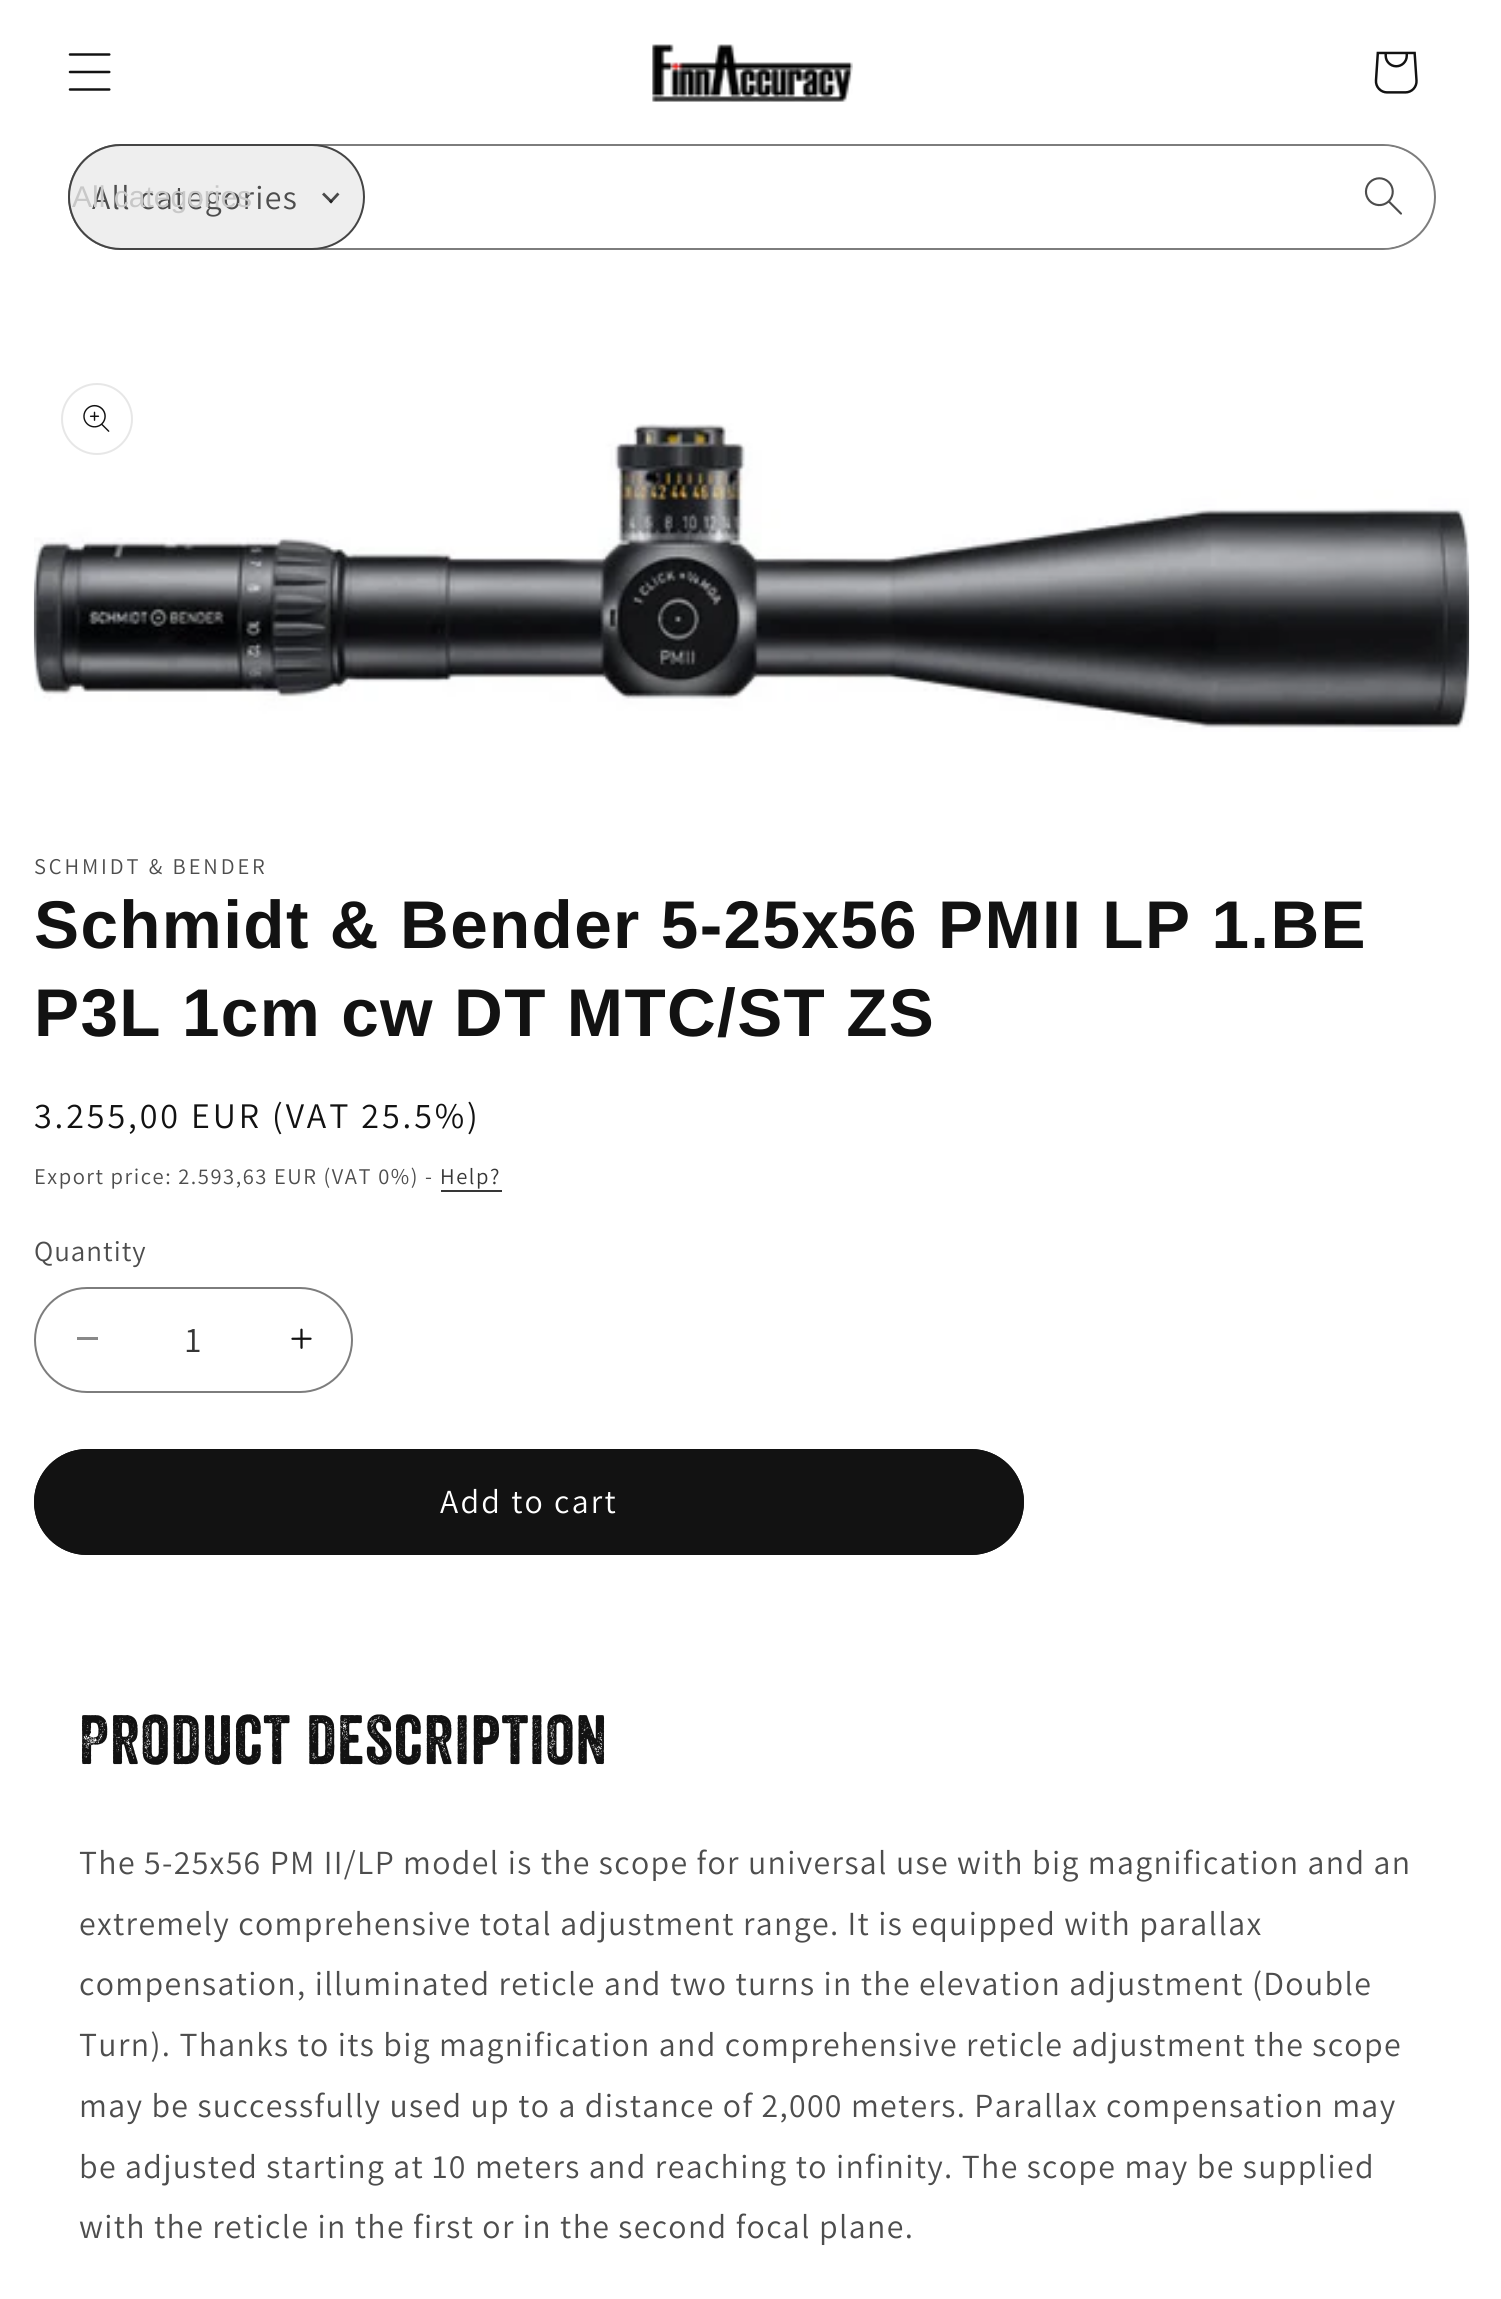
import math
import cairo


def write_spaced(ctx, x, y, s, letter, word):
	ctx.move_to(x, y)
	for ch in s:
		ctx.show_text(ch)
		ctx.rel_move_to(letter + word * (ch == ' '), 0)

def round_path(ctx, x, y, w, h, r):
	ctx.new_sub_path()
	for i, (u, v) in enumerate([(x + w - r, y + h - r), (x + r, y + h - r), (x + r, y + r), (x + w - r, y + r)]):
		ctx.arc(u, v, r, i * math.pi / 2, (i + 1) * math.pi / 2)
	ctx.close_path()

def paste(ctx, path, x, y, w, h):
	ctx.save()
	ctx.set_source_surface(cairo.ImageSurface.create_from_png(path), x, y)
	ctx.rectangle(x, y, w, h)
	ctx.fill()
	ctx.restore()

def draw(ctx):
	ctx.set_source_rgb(1, 1, 1)
	ctx.paint()
	paste(ctx, 'media/1.png', 68, 53, 43, 38)
	paste(ctx, 'media/2.png', 652, 44, 201, 58)
	paste(ctx, 'media/3.png', 1374, 51, 44, 43)
	round_path(ctx, 69, 145, 1366, 104, 52)
	ctx.set_source_rgb(0.49, 0.49, 0.49)
	ctx.stroke()
	ctx.set_source_rgb(1, 1, 1)
	round_path(ctx, 367, 146, 1066, 102, 51)
	ctx.fill()
	ctx.set_source_rgb(0.933, 0.933, 0.933)
	round_path(ctx, 69, 145, 295, 104, 52)
	ctx.fill_preserve()
	ctx.set_source_rgb(0.267, 0.267, 0.267)
	ctx.stroke()
	ctx.select_font_face('Assistant')
	ctx.set_font_size(33.75)
	ctx.set_source_rgb(0.302, 0.302, 0.302)
	write_spaced(ctx, 92, 209, 'All categories', 1.35, 0)
	ctx.select_font_face('Liberation Sans')
	ctx.set_font_size(30)
	ctx.set_source_rgb(0.784, 0.784, 0.784)
	ctx.move_to(72, 207)
	ctx.show_text('All categories')
	ctx.new_path()
	ctx.move_to(331, 201.5)
	ctx.line_to(337.5, 194.5)
	ctx.set_source_rgb(0.286, 0.286, 0.286)
	ctx.set_line_width(2.8)
	ctx.set_line_cap(cairo.LINE_CAP_SQUARE)
	ctx.stroke()
	ctx.new_path()
	ctx.move_to(331, 201.5)
	ctx.line_to(324, 194.5)
	ctx.set_source_rgba(0.071, 0.071, 0.071, 0.75)
	ctx.stroke()
	paste(ctx, 'media/4.png', 1364, 177, 38, 38)
	paste(ctx, 'media/6.png', 33, 423, 1437, 309)
	ctx.arc(97, 419, 35, 0, 2 * math.pi)
	ctx.set_source_rgb(0.906, 0.906, 0.906)
	ctx.set_line_width(2)
	ctx.set_line_cap(cairo.LINE_CAP_BUTT)
	ctx.stroke()
	paste(ctx, 'media/5.png', 83, 404, 27, 28)
	ctx.select_font_face('Assistant')
	ctx.set_font_size(22.5)
	ctx.set_source_rgb(0.302, 0.302, 0.302)
	write_spaced(ctx, 34, 874, 'SCHMIDT & BENDER', 2.9, 0)
	ctx.select_font_face('Liberation Sans', cairo.FONT_SLANT_NORMAL, cairo.FONT_WEIGHT_BOLD)
	ctx.set_font_size(67.5)
	ctx.set_source_rgb(0.071, 0.071, 0.071)
	write_spaced(ctx, 34, 948, 'Schmidt & Bender 5-25x56 PMII LP 1.BE', 1.35, 0)
	write_spaced(ctx, 34, 1036, 'P3L 1cm cw DT MTC/ST ZS', 1.35, 0)
	ctx.select_font_face('Assistant')
	ctx.set_font_size(36)
	write_spaced(ctx, 34, 1128, '3.255,00 EUR (VAT 25.5%)', 2.9, 0)
	ctx.set_font_size(22.5)
	ctx.set_source_rgb(0.302, 0.302, 0.302)
	write_spaced(ctx, 34, 1184, 'Export price: 2.593,63 EUR (VAT 0%) -', 1.55, 0)
	ctx.set_source_rgb(0.212, 0.212, 0.212)
	write_spaced(ctx, 440, 1184, 'Help?', 1.55, 0)
	ctx.rectangle(441, 1190, 61, 2)
	ctx.fill()
	ctx.set_font_size(29)
	ctx.set_source_rgb(0.302, 0.302, 0.302)
	write_spaced(ctx, 34, 1261, 'Quantity', 1, 0)
	ctx.set_source_rgb(0.537, 0.537, 0.537)
	ctx.rectangle(77, 1337, 21, 3)
	ctx.fill()
	paste(ctx, 'media/7.png', 291, 1328, 21, 21)
	round_path(ctx, 35, 1288, 317, 104, 52)
	ctx.set_source_rgb(0.49, 0.49, 0.49)
	ctx.stroke()
	ctx.set_font_size(36)
	ctx.set_source_rgb(0.212, 0.212, 0.212)
	ctx.move_to(185, 1352)
	ctx.show_text('1')
	ctx.set_source_rgb(0.071, 0.071, 0.071)
	round_path(ctx, 34, 1449, 990, 106, 53)
	ctx.fill()
	round_path(ctx, 35, 1450, 988, 104, 52)
	ctx.stroke()
	ctx.set_font_size(33.75)
	ctx.set_source_rgb(1, 1, 1)
	write_spaced(ctx, 440, 1513, 'Add to cart', 2.25, 0)
	ctx.select_font_face('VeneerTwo')
	ctx.set_font_size(67.5)
	ctx.set_source_rgb(0.071, 0.071, 0.071)
	write_spaced(ctx, 79, 1764, 'Product description', 1.35, 0)
	ctx.select_font_face('Assistant')
	ctx.set_font_size(33.75)
	ctx.set_source_rgb(0.302, 0.302, 0.302)
	for x, y, s in [
		(79, 1874, 'The 5-25x56 PM II/LP model is the scope for universal use with big magnification and an'),
		(79, 1935, 'extremely comprehensive total adjustment range. It is equipped with parallax'),
		(79, 1995, 'compensation, illuminated reticle and two turns in the elevation adjustment (Double'),
		(79, 2056, 'Turn). Thanks to its big magnification and comprehensive reticle adjustment the scope'),
		(79, 2117, 'may be successfully used up to a distance of 2,000 meters. Parallax compensation may'),
		(79, 2178, 'be adjusted starting at 10 meters and reaching to infinity. The scope may be supplied'),
		(79, 2238, 'with the reticle in the first or in the second focal plane.'),
	]:
		write_spaced(ctx, x, y, s, 1.35, 0)


surface = cairo.ImageSurface(cairo.FORMAT_RGB24, 1501, 2299)
ctx = cairo.Context(surface)
options = cairo.FontOptions()
options.set_hint_metrics(cairo.HINT_METRICS_OFF)
options.set_hint_style(cairo.HINT_STYLE_NONE)
ctx.set_font_options(options)
ctx.set_miter_limit(4)
draw(ctx)
surface.write_to_png('image.png')
